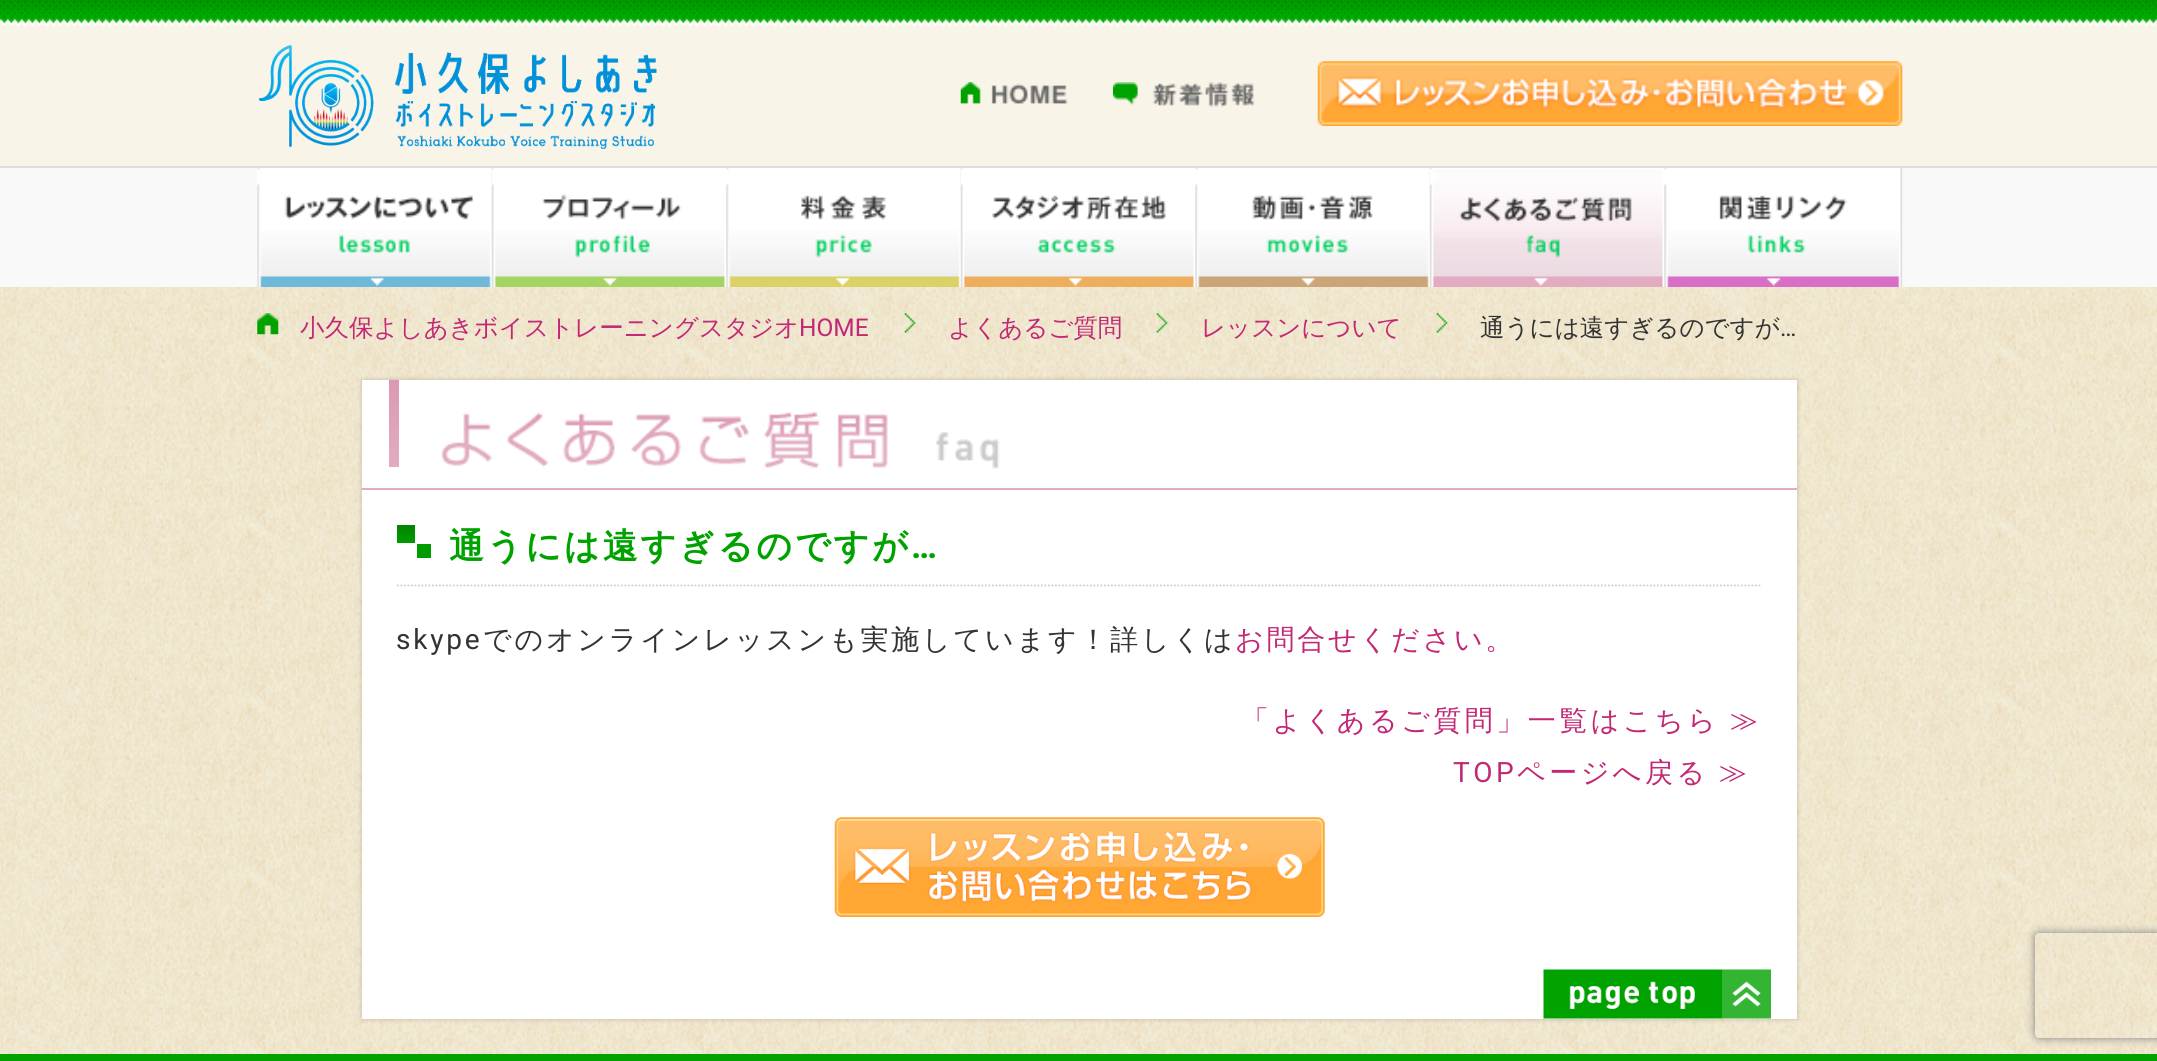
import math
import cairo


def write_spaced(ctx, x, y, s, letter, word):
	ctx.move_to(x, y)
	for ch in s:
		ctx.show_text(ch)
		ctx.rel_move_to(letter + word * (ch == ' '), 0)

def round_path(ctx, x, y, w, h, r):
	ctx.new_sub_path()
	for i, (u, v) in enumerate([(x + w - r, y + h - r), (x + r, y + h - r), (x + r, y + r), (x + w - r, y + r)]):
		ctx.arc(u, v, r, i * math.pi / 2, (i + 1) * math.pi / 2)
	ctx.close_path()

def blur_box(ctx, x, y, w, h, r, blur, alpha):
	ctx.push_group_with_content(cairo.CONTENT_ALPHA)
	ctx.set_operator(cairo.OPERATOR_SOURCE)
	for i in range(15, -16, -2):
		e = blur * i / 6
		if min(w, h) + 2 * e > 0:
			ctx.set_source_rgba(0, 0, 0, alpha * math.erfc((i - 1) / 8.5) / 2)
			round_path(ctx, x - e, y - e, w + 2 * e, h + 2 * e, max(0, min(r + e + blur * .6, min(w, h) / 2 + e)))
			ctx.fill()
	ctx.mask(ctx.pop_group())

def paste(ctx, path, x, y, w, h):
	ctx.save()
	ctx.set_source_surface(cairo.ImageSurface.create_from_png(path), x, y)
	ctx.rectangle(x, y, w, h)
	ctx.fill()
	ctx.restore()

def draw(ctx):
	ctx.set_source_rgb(0.973, 0.957, 0.91)
	ctx.paint()
	paste(ctx, 'media/1.png', 0, 0, 2157, 27)
	paste(ctx, 'media/2.png', 258, 44, 399, 105)
	paste(ctx, 'media/3.png', 960, 82, 108, 22)
	paste(ctx, 'media/4.png', 1113, 82, 142, 25)
	paste(ctx, 'media/5.png', 1317, 61, 586, 65)
	ctx.set_source_rgb(0.976, 0.976, 0.976)
	ctx.rectangle(0, 168, 2157, 119)
	ctx.fill()
	ctx.set_source_rgb(0.871, 0.871, 0.871)
	ctx.rectangle(0, 166, 2157, 2)
	ctx.fill()
	paste(ctx, 'media/6.png', 257, 168, 235, 119)
	ctx.set_source_rgb(1, 1, 1)
	ctx.new_path()
	ctx.move_to(257, 185.5)
	ctx.line_to(257, 168)
	ctx.line_to(266, 177)
	ctx.close_path()
	ctx.fill()
	paste(ctx, 'media/7.png', 491, 168, 235, 119)
	ctx.new_path()
	ctx.move_to(492, 185.5)
	ctx.line_to(492, 168)
	ctx.line_to(500.5, 177)
	ctx.close_path()
	ctx.fill()
	paste(ctx, 'media/8.png', 726, 168, 235, 119)
	ctx.new_path()
	ctx.move_to(726, 185.5)
	ctx.line_to(726, 168)
	ctx.line_to(735, 177)
	ctx.close_path()
	ctx.fill()
	paste(ctx, 'media/9.png', 960, 168, 235, 119)
	ctx.new_path()
	ctx.move_to(961, 185.5)
	ctx.line_to(961, 168)
	ctx.line_to(969.5, 177)
	ctx.close_path()
	ctx.fill()
	paste(ctx, 'media/10.png', 1195, 168, 235, 119)
	ctx.new_path()
	ctx.move_to(1195, 185.5)
	ctx.line_to(1195, 168)
	ctx.line_to(1204, 177)
	ctx.close_path()
	ctx.fill()
	paste(ctx, 'media/11.png', 1429, 168, 235, 119)
	ctx.new_path()
	ctx.move_to(1430, 185.5)
	ctx.line_to(1430, 168)
	ctx.line_to(1438.5, 177)
	ctx.close_path()
	ctx.fill()
	paste(ctx, 'media/12.png', 1664, 168, 239, 119)
	ctx.new_path()
	ctx.move_to(1664, 185.5)
	ctx.line_to(1664, 168)
	ctx.line_to(1673, 177)
	ctx.close_path()
	ctx.fill()
	paste(ctx, 'media/13.png', 0, 287, 2157, 767)
	paste(ctx, 'media/14.png', 257, 313, 22, 22)
	ctx.select_font_face('WenQuanYi Zen Hei Medium')
	ctx.set_font_size(24.5)
	ctx.set_source_rgb(0.765, 0.157, 0.455)
	ctx.move_to(300, 336)
	ctx.show_text('小久保よしあきボイストレーニングスタジオ')
	ctx.select_font_face('Roboto')
	ctx.move_to(799, 336)
	ctx.show_text('HOME')
	paste(ctx, 'media/15.png', 904, 313, 12, 20)
	ctx.select_font_face('WenQuanYi Zen Hei Medium')
	ctx.move_to(948, 336)
	ctx.show_text('よくあるご質問')
	paste(ctx, 'media/16.png', 1156, 313, 12, 20)
	ctx.move_to(1201, 336)
	ctx.show_text('レッスンについて')
	paste(ctx, 'media/17.png', 1436, 313, 12, 20)
	ctx.set_source_rgb(0.2, 0.2, 0.2)
	ctx.move_to(1480, 336)
	ctx.show_text('通うには遠すぎるのですが')
	ctx.select_font_face('Roboto')
	ctx.move_to(1780, 336)
	ctx.show_text('…')
	ctx.set_source_rgb(0, 0, 0)
	blur_box(ctx, 362, 380, 1435, 639, 0, 2.5, 0.2)
	ctx.set_source_rgb(1, 1, 1)
	ctx.rectangle(362, 380, 1435, 639)
	ctx.fill()
	paste(ctx, 'media/18.png', 441, 411, 559, 58)
	ctx.set_source_rgb(0.886, 0.671, 0.757)
	ctx.rectangle(362, 488, 1435, 2)
	ctx.fill()
	gradient = cairo.LinearGradient(394, 380, 394, 467)
	gradient.add_color_stop_rgba(0, 0.863, 0.6, 0.706, 1)
	gradient.add_color_stop_rgba(1, 0.886, 0.671, 0.757, 1)
	ctx.set_source(gradient)
	ctx.rectangle(389, 380, 10, 87)
	ctx.fill()
	ctx.new_path()
	ctx.move_to(397, 585.5)
	ctx.line_to(1762, 585.5)
	ctx.set_source_rgb(0.8, 0.8, 0.8)
	ctx.set_line_width(1.8)
	ctx.set_dash([1.75, 1.75])
	ctx.stroke()
	gradient = cairo.LinearGradient(406, 525, 406, 543)
	gradient.add_color_stop_rgba(0, 0, 0.518, 0, 1)
	gradient.add_color_stop_rgba(1, 0, 0.612, 0, 1)
	ctx.set_source(gradient)
	ctx.rectangle(397, 525, 18, 18)
	ctx.fill()
	ctx.set_source_rgb(0, 0.612, 0)
	ctx.rectangle(417, 544, 14, 14)
	ctx.fill()
	ctx.select_font_face('WenQuanYi Zen Hei', cairo.FONT_SLANT_NORMAL, cairo.FONT_WEIGHT_BOLD)
	ctx.set_font_size(35)
	ctx.set_source_rgb(0, 0.635, 0)
	write_spaced(ctx, 449, 558, '通うには遠すぎるのですが', 2.8, 0)
	ctx.select_font_face('Roboto', cairo.FONT_SLANT_NORMAL, cairo.FONT_WEIGHT_BOLD)
	write_spaced(ctx, 911, 558, '…', 2.8, 0)
	ctx.select_font_face('Roboto')
	ctx.set_font_size(28)
	ctx.set_source_rgb(0.2, 0.2, 0.2)
	write_spaced(ctx, 396, 649, 'skype', 2.8, 0)
	ctx.select_font_face('WenQuanYi Zen Hei Medium')
	write_spaced(ctx, 483, 649, 'でのオンラインレッスンも実施しています！詳しくは', 2.8, 0)
	ctx.set_source_rgb(0.765, 0.157, 0.455)
	write_spaced(ctx, 1235, 649, 'お問合せください。', 2.8, 0)
	write_spaced(ctx, 1241, 730, '「よくあるご質問」一覧はこちら', 3.5, 0)
	write_spaced(ctx, 1730, 730, '≫', 3.5, 0)
	ctx.select_font_face('Roboto')
	write_spaced(ctx, 1453, 782, 'TOP', 3.5, 0)
	ctx.select_font_face('WenQuanYi Zen Hei Medium')
	write_spaced(ctx, 1517, 782, 'ページへ戻る', 3.5, 0)
	write_spaced(ctx, 1719, 782, '≫', 3.5, 0)
	paste(ctx, 'media/19.png', 834, 817, 491, 100)
	paste(ctx, 'media/20.png', 1543, 969, 228, 50)
	ctx.set_source_rgb(0, 0.635, 0)
	ctx.rectangle(0, 1054, 2157, 7)
	ctx.fill()
	ctx.save()
	ctx.set_fill_rule(cairo.FILL_RULE_EVEN_ODD)
	ctx.new_path()
	ctx.move_to(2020, 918)
	ctx.line_to(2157, 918)
	ctx.line_to(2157, 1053)
	ctx.line_to(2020, 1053)
	ctx.close_path()
	ctx.move_to(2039, 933)
	ctx.line_to(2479, 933)
	ctx.curve_to(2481, 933, 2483, 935, 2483, 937)
	ctx.line_to(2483, 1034)
	ctx.curve_to(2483, 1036, 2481, 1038, 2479, 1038)
	ctx.line_to(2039, 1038)
	ctx.curve_to(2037, 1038, 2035, 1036, 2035, 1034)
	ctx.line_to(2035, 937)
	ctx.curve_to(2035, 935, 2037, 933, 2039, 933)
	ctx.close_path()
	ctx.clip()
	ctx.set_source_rgb(0.502, 0.502, 0.502)
	blur_box(ctx, 2035, 933, 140, 105, 4, 4.5, 1)
	ctx.restore()


surface = cairo.ImageSurface(cairo.FORMAT_RGB24, 2157, 1061)
ctx = cairo.Context(surface)
options = cairo.FontOptions()
options.set_hint_metrics(cairo.HINT_METRICS_OFF)
options.set_hint_style(cairo.HINT_STYLE_NONE)
ctx.set_font_options(options)
ctx.set_miter_limit(4)
draw(ctx)
surface.write_to_png('image.png')
